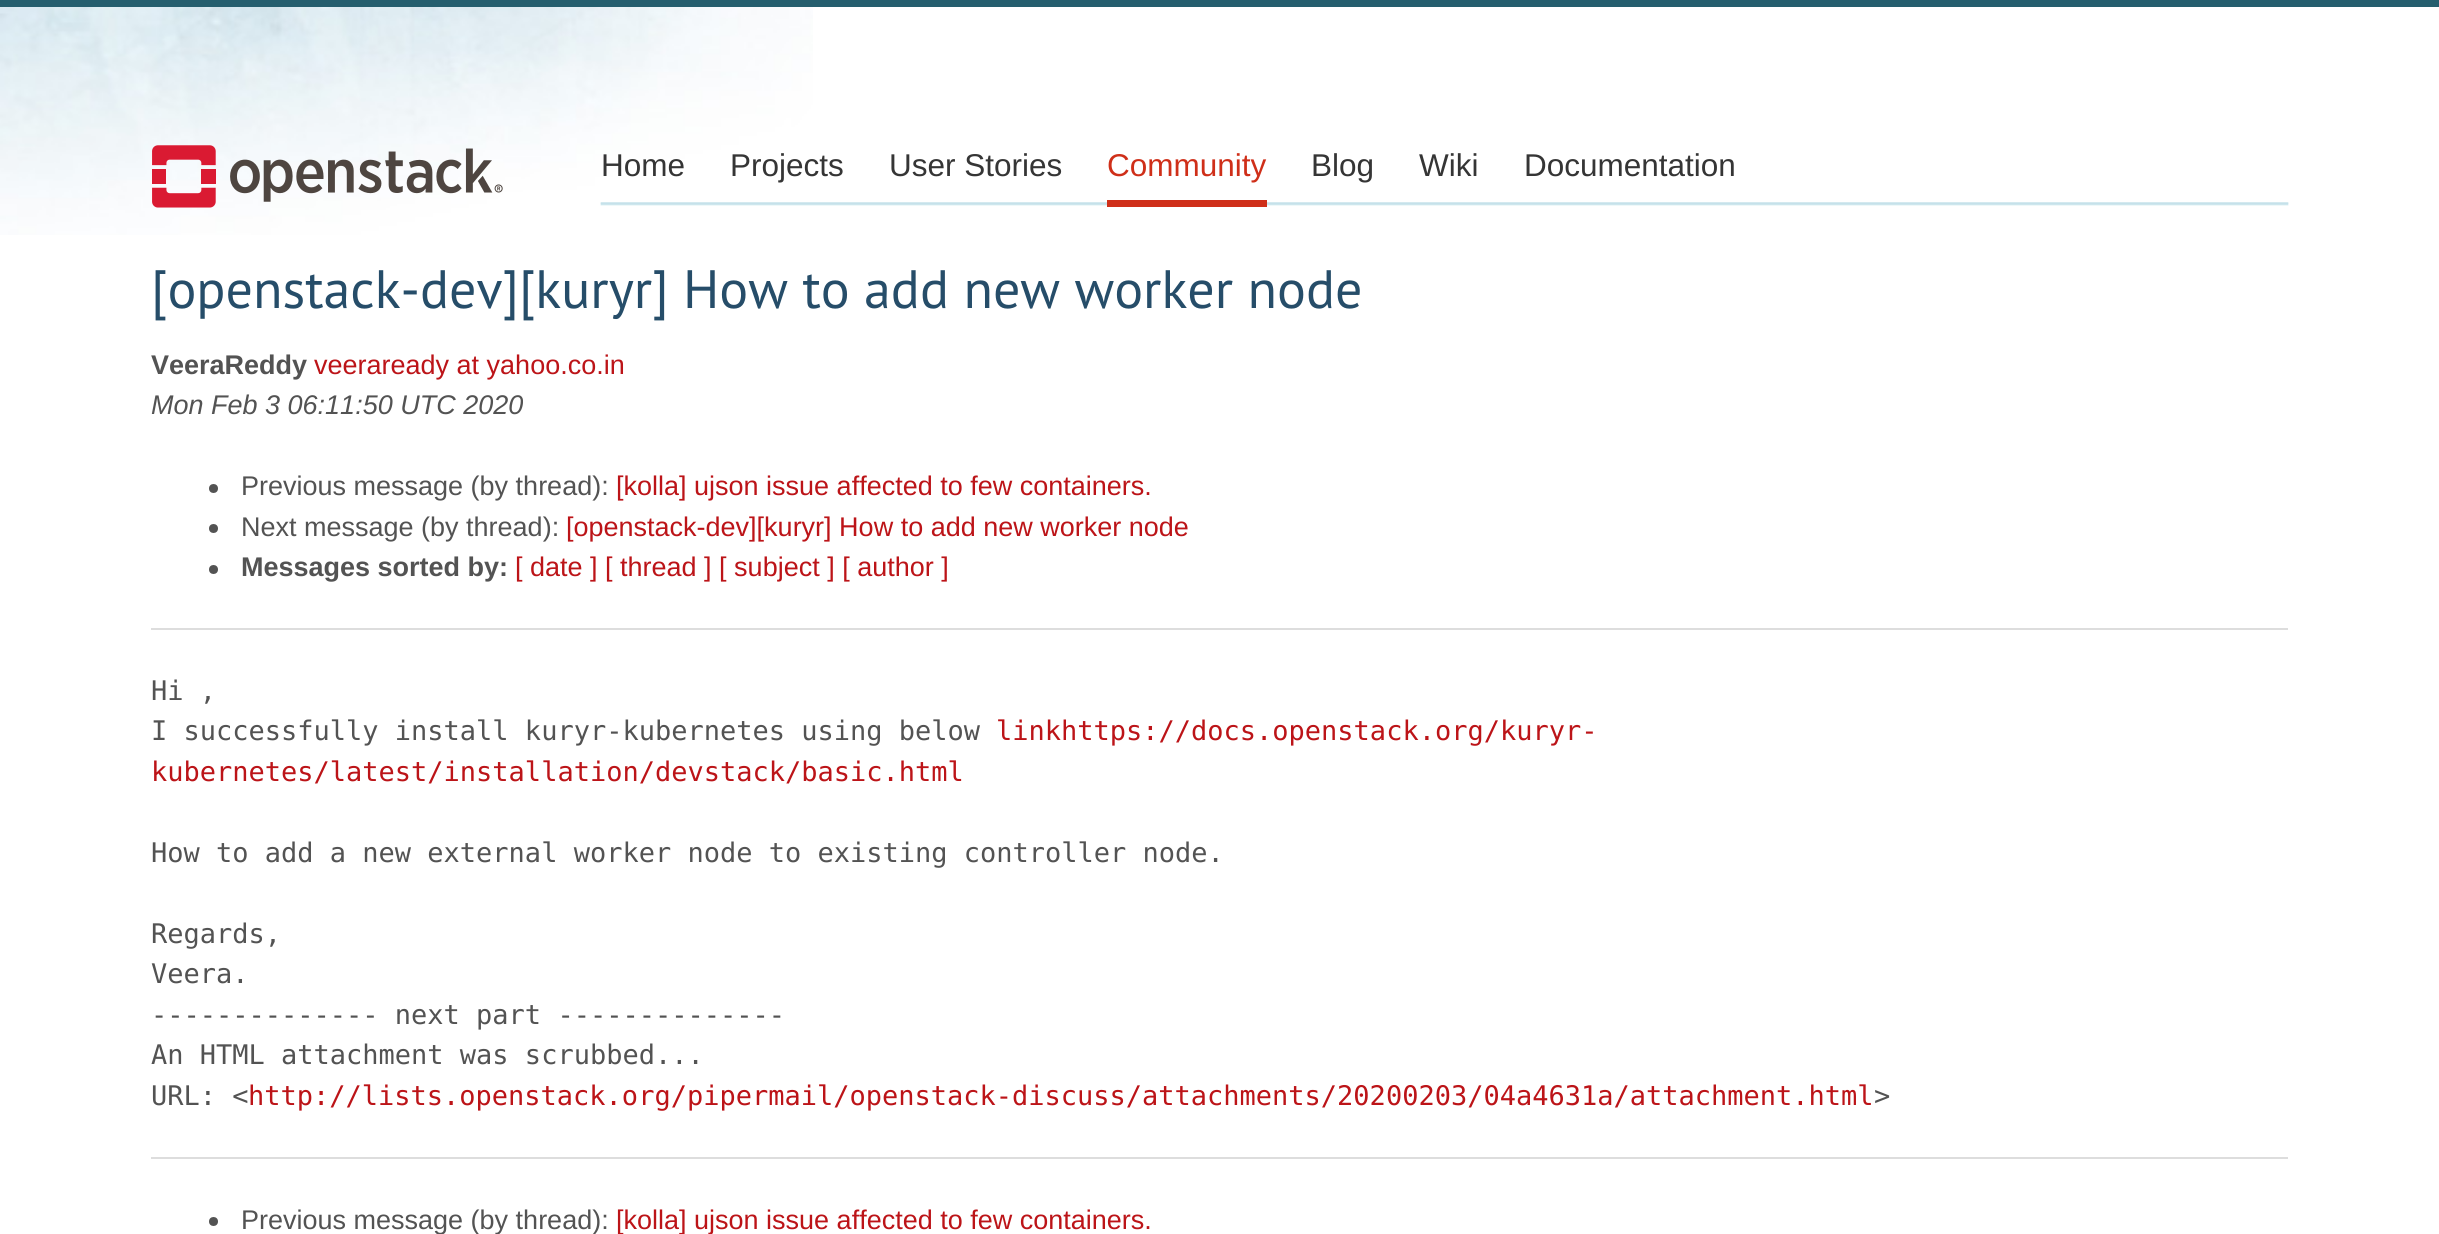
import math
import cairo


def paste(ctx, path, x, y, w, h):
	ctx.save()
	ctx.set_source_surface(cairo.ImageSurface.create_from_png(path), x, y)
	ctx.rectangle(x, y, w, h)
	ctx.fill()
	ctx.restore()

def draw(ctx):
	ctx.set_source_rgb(1, 1, 1)
	ctx.paint()
	paste(ctx, 'media/1.png', 0, 7, 813, 228)
	ctx.set_source_rgb(0.145, 0.369, 0.431)
	ctx.rectangle(0, 0, 2439, 7)
	ctx.fill()
	paste(ctx, 'media/2.png', 152, 145, 351, 63)
	paste(ctx, 'media/3.png', 600, 202, 1689, 4)
	paste(ctx, 'media/4.png', 600, 202, 1689, 4)
	ctx.select_font_face('Liberation Sans')
	ctx.set_font_size(31.5)
	ctx.set_source_rgb(0.208, 0.208, 0.208)
	for x, y, s in [
		(601, 176, 'Home'),
		(730, 176, 'Projects'),
		(889, 176, 'User Stories'),
	]:
		ctx.move_to(x, y)
		ctx.show_text(s)
	ctx.set_source_rgb(0.812, 0.184, 0.098)
	ctx.rectangle(1107, 200, 160, 7)
	ctx.fill()
	ctx.move_to(1107, 176)
	ctx.show_text('Community')
	ctx.set_source_rgb(0.208, 0.208, 0.208)
	for x, y, s in [
		(1311, 176, 'Blog'),
		(1419, 176, 'Wiki'),
		(1524, 176, 'Documentation'),
	]:
		ctx.move_to(x, y)
		ctx.show_text(s)
	ctx.select_font_face('PT Sans')
	ctx.set_font_size(54)
	ctx.set_source_rgb(0.149, 0.302, 0.412)
	ctx.move_to(151, 308)
	ctx.show_text('[openstack-dev][kuryr] How to add new worker node')
	ctx.select_font_face('Liberation Sans', cairo.FONT_SLANT_NORMAL, cairo.FONT_WEIGHT_BOLD)
	ctx.set_font_size(27)
	ctx.set_source_rgb(0.325, 0.325, 0.325)
	ctx.move_to(151, 374)
	ctx.show_text('VeeraReddy')
	ctx.select_font_face('Liberation Sans')
	ctx.set_source_rgb(0.737, 0.082, 0.094)
	ctx.move_to(314, 374)
	ctx.show_text('veeraready at yahoo.co.in')
	ctx.select_font_face('Liberation Sans', cairo.FONT_SLANT_ITALIC)
	ctx.set_source_rgb(0.325, 0.325, 0.325)
	ctx.move_to(151, 414)
	ctx.show_text('Mon Feb 3 06:11:50 UTC 2020')
	ctx.new_path()
	ctx.arc(213.5, 488.5, 4.5, 0, 2 * math.pi)
	ctx.fill()
	ctx.select_font_face('Liberation Sans')
	ctx.move_to(241, 495)
	ctx.show_text('Previous message (by thread):')
	ctx.set_source_rgb(0.737, 0.082, 0.094)
	ctx.move_to(616, 495)
	ctx.show_text('[kolla] ujson issue affected to few containers.')
	ctx.set_source_rgb(0.325, 0.325, 0.325)
	ctx.new_path()
	ctx.arc(213.5, 528.5, 4.5, 0, 2 * math.pi)
	ctx.fill()
	ctx.move_to(241, 536)
	ctx.show_text('Next message (by thread):')
	ctx.set_source_rgb(0.737, 0.082, 0.094)
	ctx.move_to(566, 536)
	ctx.show_text('[openstack-dev][kuryr] How to add new worker node')
	ctx.set_source_rgb(0.325, 0.325, 0.325)
	ctx.new_path()
	ctx.arc(213.5, 569.5, 4.5, 0, 2 * math.pi)
	ctx.fill()
	ctx.select_font_face('Liberation Sans', cairo.FONT_SLANT_NORMAL, cairo.FONT_WEIGHT_BOLD)
	ctx.move_to(241, 576)
	ctx.show_text('Messages sorted by:')
	ctx.select_font_face('Liberation Sans')
	ctx.set_source_rgb(0.737, 0.082, 0.094)
	ctx.move_to(515, 576)
	ctx.show_text('[ date ] [ thread ] [ subject ] [ author ]')
	ctx.set_source_rgb(0.867, 0.867, 0.867)
	ctx.rectangle(151, 628, 2137, 2)
	ctx.fill()
	ctx.select_font_face('DejaVu Sans Mono')
	ctx.set_source_rgb(0.325, 0.325, 0.325)
	ctx.move_to(151, 700)
	ctx.show_text('Hi ,')
	ctx.move_to(151, 740)
	ctx.show_text('I successfully install kuryr-kubernetes using below')
	ctx.set_source_rgb(0.737, 0.082, 0.094)
	ctx.move_to(996, 740)
	ctx.show_text('linkhttps://docs.openstack.org/kuryr-')
	ctx.move_to(151, 781)
	ctx.show_text('kubernetes/latest/installation/devstack/basic.html')
	ctx.set_source_rgb(0.325, 0.325, 0.325)
	for x, y, s in [
		(151, 862, 'How to add a new external worker node to existing controller node.'),
		(151, 943, 'Regards,'),
		(151, 983, 'Veera.'),
		(151, 1024, '-------------- next part --------------'),
		(151, 1064, 'An HTML attachment was scrubbed...'),
		(151, 1105, 'URL: <'),
	]:
		ctx.move_to(x, y)
		ctx.show_text(s)
	ctx.set_source_rgb(0.737, 0.082, 0.094)
	ctx.move_to(248, 1105)
	ctx.show_text('http://lists.openstack.org/pipermail/openstack-discuss/attachments/20200203/04a4631a/attachment.html')
	ctx.set_source_rgb(0.325, 0.325, 0.325)
	ctx.move_to(1874, 1105)
	ctx.show_text('>')
	ctx.set_source_rgb(0.867, 0.867, 0.867)
	ctx.rectangle(151, 1157, 2137, 2)
	ctx.fill()
	ctx.set_source_rgb(0.325, 0.325, 0.325)
	ctx.arc(213.5, 1221.5, 4.5, 0, 2 * math.pi)
	ctx.fill()
	ctx.select_font_face('Liberation Sans')
	ctx.move_to(241, 1229)
	ctx.show_text('Previous message (by thread):')
	ctx.set_source_rgb(0.737, 0.082, 0.094)
	ctx.move_to(616, 1229)
	ctx.show_text('[kolla] ujson issue affected to few containers.')


surface = cairo.ImageSurface(cairo.FORMAT_RGB24, 2439, 1234)
ctx = cairo.Context(surface)
options = cairo.FontOptions()
options.set_hint_metrics(cairo.HINT_METRICS_OFF)
options.set_hint_style(cairo.HINT_STYLE_NONE)
ctx.set_font_options(options)
ctx.set_miter_limit(4)
draw(ctx)
surface.write_to_png('image.png')
